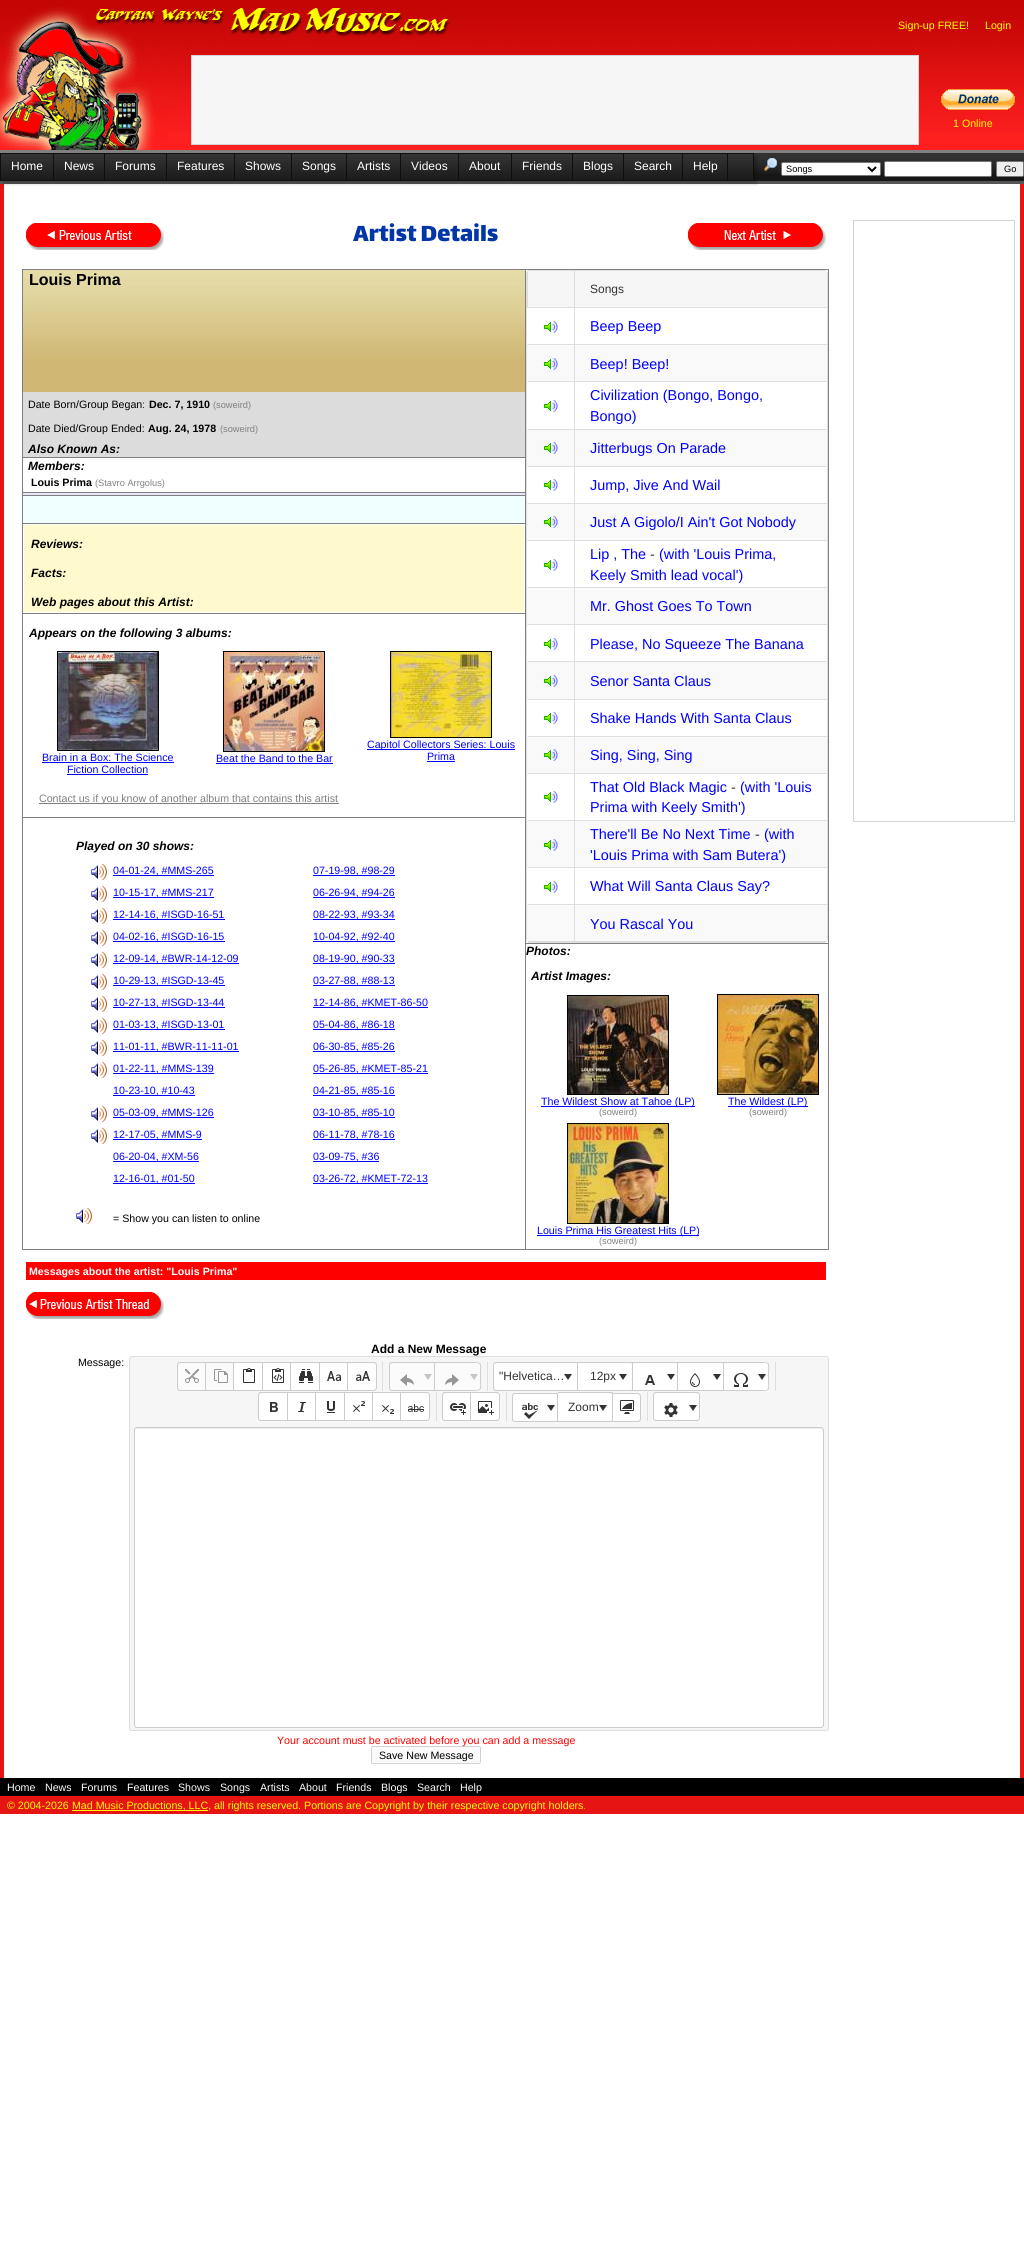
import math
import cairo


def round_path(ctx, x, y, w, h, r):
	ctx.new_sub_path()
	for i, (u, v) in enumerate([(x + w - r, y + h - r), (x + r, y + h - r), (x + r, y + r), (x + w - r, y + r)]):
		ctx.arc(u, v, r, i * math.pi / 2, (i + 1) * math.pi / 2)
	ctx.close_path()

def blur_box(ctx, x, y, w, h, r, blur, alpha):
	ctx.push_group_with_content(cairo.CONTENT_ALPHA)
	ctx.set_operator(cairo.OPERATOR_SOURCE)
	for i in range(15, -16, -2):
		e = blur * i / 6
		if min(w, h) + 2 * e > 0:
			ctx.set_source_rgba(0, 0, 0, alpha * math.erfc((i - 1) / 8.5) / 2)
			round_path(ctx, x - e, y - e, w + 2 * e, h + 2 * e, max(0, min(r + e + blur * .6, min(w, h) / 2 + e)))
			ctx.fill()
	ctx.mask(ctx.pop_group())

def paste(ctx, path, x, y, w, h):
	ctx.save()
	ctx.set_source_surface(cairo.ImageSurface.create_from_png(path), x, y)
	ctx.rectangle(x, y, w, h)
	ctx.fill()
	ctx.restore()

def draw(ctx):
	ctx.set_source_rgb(1, 1, 1)
	ctx.paint()
	paste(ctx, 'media/1.png', 0, 0, 508, 49)
	paste(ctx, 'media/2.png', 508, 0, 80, 49)
	paste(ctx, 'media/3.png', 588, 0, 436, 49)
	ctx.select_font_face('Liberation Sans')
	ctx.set_font_size(10.65)
	ctx.set_source_rgb(1, 1, 0)
	ctx.move_to(898, 29)
	ctx.show_text('Sign-up FREE!')
	ctx.move_to(985, 29)
	ctx.show_text('Login')
	ctx.set_source_rgb(0.996, 0.122, 0.122)
	ctx.rectangle(170, 132, 854, 18)
	ctx.fill()
	paste(ctx, 'media/4.png', 0, 49, 170, 101)
	paste(ctx, 'media/5.png', 170, 49, 770, 83)
	ctx.set_source_rgb(0.961, 0.961, 0.961)
	ctx.rectangle(191.5, 55.5, 727, 89)
	ctx.fill_preserve()
	ctx.set_source_rgb(0.827, 0.827, 0.827)
	ctx.set_line_width(1)
	ctx.stroke()
	paste(ctx, 'media/6.png', 940, 49, 84, 83)
	paste(ctx, 'media/7.png', 941, 89, 74, 21)
	ctx.set_source_rgb(1, 1, 0)
	ctx.move_to(953, 127)
	ctx.show_text('1 Online')
	ctx.set_source_rgb(0.502, 0.502, 0.502)
	ctx.rectangle(0, 150, 1024, 3)
	ctx.fill()
	ctx.set_source_rgb(0.333, 0.333, 0.333)
	ctx.rectangle(0, 181, 1024, 3)
	ctx.fill()
	ctx.set_source_rgb(0.086, 0.086, 0.086)
	ctx.rectangle(754, 174, 270, 7)
	ctx.fill()
	paste(ctx, 'media/8.png', 754, 153, 270, 21)
	ctx.set_source_rgb(0.902, 0.082, 0.078)
	ctx.rectangle(0, 184, 4, 1594)
	ctx.fill()
	ctx.set_source_rgb(0, 0, 0)
	blur_box(ctx, 3, 156, 754, 28, 0, 1.5, 0.2)
	gradient = cairo.LinearGradient(377, 154, 377, 180)
	gradient.add_color_stop_rgba(0, 0.208, 0.204, 0.204, 1)
	gradient.add_color_stop_rgba(1, 0.106, 0.106, 0.106, 1)
	ctx.set_source(gradient)
	ctx.rectangle(1, 154, 752, 26)
	ctx.fill()
	ctx.rectangle(0.5, 153.5, 753, 27)
	ctx.set_source_rgb(0.055, 0.055, 0.055)
	ctx.stroke()
	ctx.rectangle(53, 154, 1, 26)
	ctx.fill()
	ctx.set_font_size(12)
	ctx.set_source_rgb(1, 1, 1)
	ctx.move_to(11, 170)
	ctx.show_text('Home')
	ctx.set_source_rgb(0.055, 0.055, 0.055)
	ctx.rectangle(104, 154, 1, 26)
	ctx.fill()
	ctx.set_source_rgb(1, 1, 1)
	ctx.move_to(64, 170)
	ctx.show_text('News')
	ctx.set_source_rgb(0.055, 0.055, 0.055)
	ctx.rectangle(166, 154, 1, 26)
	ctx.fill()
	ctx.set_source_rgb(1, 1, 1)
	ctx.move_to(115, 170)
	ctx.show_text('Forums')
	ctx.set_source_rgb(0.055, 0.055, 0.055)
	ctx.rectangle(234, 154, 1, 26)
	ctx.fill()
	ctx.set_source_rgb(1, 1, 1)
	ctx.move_to(177, 170)
	ctx.show_text('Features')
	ctx.set_source_rgb(0.055, 0.055, 0.055)
	ctx.rectangle(291, 154, 1, 26)
	ctx.fill()
	ctx.set_source_rgb(1, 1, 1)
	ctx.move_to(245, 170)
	ctx.show_text('Shows')
	ctx.set_source_rgb(0.055, 0.055, 0.055)
	ctx.rectangle(346, 154, 1, 26)
	ctx.fill()
	ctx.set_source_rgb(1, 1, 1)
	ctx.move_to(302, 170)
	ctx.show_text('Songs')
	ctx.set_source_rgb(0.055, 0.055, 0.055)
	ctx.rectangle(400, 154, 1, 26)
	ctx.fill()
	ctx.set_source_rgb(1, 1, 1)
	ctx.move_to(357, 170)
	ctx.show_text('Artists')
	ctx.set_source_rgb(0.055, 0.055, 0.055)
	ctx.rectangle(458, 154, 1, 26)
	ctx.fill()
	ctx.set_source_rgb(1, 1, 1)
	ctx.move_to(411, 170)
	ctx.show_text('Videos')
	ctx.set_source_rgb(0.055, 0.055, 0.055)
	ctx.rectangle(511, 154, 1, 26)
	ctx.fill()
	ctx.set_source_rgb(1, 1, 1)
	ctx.move_to(469, 170)
	ctx.show_text('About')
	ctx.set_source_rgb(0.055, 0.055, 0.055)
	ctx.rectangle(572, 154, 1, 26)
	ctx.fill()
	ctx.set_source_rgb(1, 1, 1)
	ctx.move_to(522, 170)
	ctx.show_text('Friends')
	ctx.set_source_rgb(0.055, 0.055, 0.055)
	ctx.rectangle(623, 154, 1, 26)
	ctx.fill()
	ctx.set_source_rgb(1, 1, 1)
	ctx.move_to(583, 170)
	ctx.show_text('Blogs')
	ctx.set_source_rgb(0.055, 0.055, 0.055)
	ctx.rectangle(682, 154, 1, 26)
	ctx.fill()
	ctx.set_source_rgb(1, 1, 1)
	ctx.move_to(634, 170)
	ctx.show_text('Search')
	ctx.set_source_rgb(0.055, 0.055, 0.055)
	ctx.rectangle(727, 154, 1, 26)
	ctx.fill()
	ctx.set_source_rgb(1, 1, 1)
	ctx.move_to(693, 170)
	ctx.show_text('Help')
	paste(ctx, 'media/9.png', 764, 158, 13, 14)
	round_path(ctx, 781.5, 162.5, 99, 13, 1.5)
	ctx.fill_preserve()
	ctx.set_source_rgb(0.463, 0.463, 0.463)
	ctx.stroke()
	ctx.new_path()
	ctx.move_to(868, 167)
	ctx.line_to(872, 171)
	ctx.line_to(876, 167)
	ctx.set_source_rgb(0, 0, 0)
	ctx.set_line_width(2)
	ctx.stroke()
	ctx.set_font_size(9.25)
	ctx.move_to(786, 172)
	ctx.show_text('Songs')
	ctx.set_source_rgb(1, 1, 1)
	round_path(ctx, 884.5, 161.5, 107, 15, 1.5)
	ctx.fill_preserve()
	ctx.set_source_rgb(0.463, 0.463, 0.463)
	ctx.set_line_width(1)
	ctx.stroke()
	ctx.set_source_rgb(0.937, 0.937, 0.937)
	round_path(ctx, 996.5, 161.5, 27, 15, 1.5)
	ctx.fill_preserve()
	ctx.set_source_rgb(0.463, 0.463, 0.463)
	ctx.stroke()
	ctx.set_source_rgb(0, 0, 0)
	ctx.move_to(1004, 172)
	ctx.show_text('Go')
	ctx.set_source_rgb(0.902, 0.082, 0.078)
	ctx.rectangle(1020, 184, 4, 1594)
	ctx.fill()
	paste(ctx, 'media/10.png', 26, 223, 138, 27)
	ctx.select_font_face('Lalezar')
	ctx.set_font_size(26.5)
	ctx.set_source_rgb(0.004, 0.212, 0.659)
	ctx.move_to(353, 241)
	ctx.show_text('Artist Details')
	paste(ctx, 'media/11.png', 688, 223, 138, 27)
	ctx.set_source_rgb(0.502, 0.502, 0.502)
	ctx.rectangle(22, 1249, 807, 1)
	ctx.rectangle(525, 269, 1, 980)
	ctx.rectangle(22, 269, 1, 980)
	ctx.fill()
	ctx.set_source_rgb(0.816, 0.718, 0.451)
	ctx.rectangle(23, 358, 502, 34)
	ctx.fill()
	paste(ctx, 'media/12.png', 23, 270, 502, 88)
	ctx.set_source_rgb(0.502, 0.502, 0.502)
	ctx.rectangle(23, 269, 502, 1)
	ctx.fill()
	ctx.select_font_face('Liberation Sans', cairo.FONT_SLANT_NORMAL, cairo.FONT_WEIGHT_BOLD)
	ctx.set_font_size(16)
	ctx.set_source_rgb(0, 0, 0)
	ctx.move_to(29, 285)
	ctx.show_text('Louis Prima')
	ctx.set_source_rgb(0.863, 0.863, 0.863)
	ctx.rectangle(23, 392, 502, 65)
	ctx.fill()
	ctx.select_font_face('Liberation Sans')
	ctx.set_font_size(10.65)
	ctx.set_source_rgb(0, 0, 0)
	ctx.move_to(28, 408)
	ctx.show_text('Date Born/Group Began:')
	ctx.select_font_face('Liberation Sans', cairo.FONT_SLANT_NORMAL, cairo.FONT_WEIGHT_BOLD)
	ctx.move_to(149, 408)
	ctx.show_text('Dec. 7, 1910')
	ctx.select_font_face('Liberation Sans')
	ctx.set_font_size(9.25)
	ctx.set_source_rgb(0.502, 0.502, 0.502)
	ctx.move_to(213, 408)
	ctx.show_text('(soweird)')
	ctx.set_font_size(10.65)
	ctx.set_source_rgb(0, 0, 0)
	ctx.move_to(28, 432)
	ctx.show_text('Date Died/Group Ended:')
	ctx.select_font_face('Liberation Sans', cairo.FONT_SLANT_NORMAL, cairo.FONT_WEIGHT_BOLD)
	ctx.move_to(148, 432)
	ctx.show_text('Aug. 24, 1978')
	ctx.select_font_face('Liberation Sans')
	ctx.set_font_size(9.25)
	ctx.set_source_rgb(0.502, 0.502, 0.502)
	ctx.move_to(220, 432)
	ctx.show_text('(soweird)')
	ctx.select_font_face('Liberation Sans', cairo.FONT_SLANT_ITALIC, cairo.FONT_WEIGHT_BOLD)
	ctx.set_font_size(12)
	ctx.set_source_rgb(0, 0, 0)
	ctx.move_to(28, 453)
	ctx.show_text('Also Known As:')
	ctx.set_source_rgb(0.502, 0.502, 0.502)
	ctx.rectangle(23, 457, 502, 1)
	ctx.fill()
	ctx.rectangle(23, 492, 502, 1)
	ctx.fill()
	ctx.set_source_rgb(0, 0, 0)
	ctx.move_to(28, 470)
	ctx.show_text('Members:')
	ctx.select_font_face('Liberation Sans', cairo.FONT_SLANT_NORMAL, cairo.FONT_WEIGHT_BOLD)
	ctx.set_font_size(10.65)
	ctx.move_to(31, 486)
	ctx.show_text('Louis Prima')
	ctx.select_font_face('Liberation Sans')
	ctx.set_font_size(9.25)
	ctx.set_source_rgb(0.502, 0.502, 0.502)
	ctx.move_to(95, 486)
	ctx.show_text('(Stavro Arrgolus)')
	ctx.set_source_rgb(0.902, 0.902, 0.98)
	ctx.rectangle(23, 493, 502, 2)
	ctx.fill()
	ctx.set_source_rgb(0.502, 0.502, 0.502)
	ctx.rectangle(23, 495, 502, 1)
	ctx.fill()
	ctx.set_source_rgb(0.941, 1, 1)
	ctx.rectangle(23, 496, 502, 27)
	ctx.fill()
	ctx.set_source_rgb(0.502, 0.502, 0.502)
	ctx.rectangle(23, 523, 502, 1)
	ctx.rectangle(23, 613, 502, 1)
	ctx.fill()
	ctx.set_source_rgb(1, 0.98, 0.804)
	ctx.rectangle(24, 525, 500, 87)
	ctx.fill()
	ctx.select_font_face('Liberation Sans', cairo.FONT_SLANT_ITALIC, cairo.FONT_WEIGHT_BOLD)
	ctx.set_font_size(12)
	ctx.set_source_rgb(0, 0, 0)
	for x, y, s in [
		(31, 548, 'Reviews:'),
		(31, 577, 'Facts:'),
		(31, 606, 'Web pages about this Artist:'),
	]:
		ctx.move_to(x, y)
		ctx.show_text(s)
	ctx.set_source_rgb(0.502, 0.502, 0.502)
	ctx.rectangle(23, 817, 502, 1)
	ctx.fill()
	ctx.set_source_rgb(0, 0, 0)
	ctx.move_to(29, 637)
	ctx.show_text('Appears on the following 3 albums:')
	ctx.rectangle(390.5, 651.5, 101, 86)
	ctx.stroke()
	paste(ctx, 'media/13.png', 391, 652, 100, 85)
	ctx.set_source_rgb(0, 0, 1)
	ctx.rectangle(367, 749, 148, 1)
	ctx.fill()
	ctx.select_font_face('Liberation Sans')
	ctx.set_font_size(10.65)
	ctx.move_to(367, 748)
	ctx.show_text('Capitol Collectors Series: Louis')
	ctx.move_to(427, 760)
	ctx.show_text('Prima')
	ctx.rectangle(427, 761, 28, 1)
	ctx.fill()
	ctx.rectangle(57.5, 651.5, 101, 99)
	ctx.set_source_rgb(0, 0, 0)
	ctx.stroke()
	paste(ctx, 'media/14.png', 58, 652, 100, 98)
	ctx.set_source_rgb(0, 0, 1)
	ctx.move_to(42, 761)
	ctx.show_text('Brain in a Box: The Science')
	ctx.rectangle(42, 762, 132, 1)
	ctx.fill()
	ctx.move_to(67, 773)
	ctx.show_text('Fiction Collection')
	ctx.rectangle(67, 774, 81, 1)
	ctx.fill()
	ctx.rectangle(223.5, 651.5, 101, 100)
	ctx.set_source_rgb(0, 0, 0)
	ctx.stroke()
	paste(ctx, 'media/15.png', 224, 652, 100, 99)
	ctx.set_source_rgb(0, 0, 1)
	ctx.move_to(216, 762)
	ctx.show_text('Beat the Band to the Bar')
	ctx.rectangle(216, 763, 117, 1)
	ctx.fill()
	ctx.set_source_rgb(0.502, 0.502, 0.502)
	ctx.rectangle(39, 803, 300, 1)
	ctx.fill()
	ctx.move_to(39, 802)
	ctx.show_text('Contact us if you know of another album that contains this artist')
	ctx.select_font_face('Liberation Sans', cairo.FONT_SLANT_ITALIC, cairo.FONT_WEIGHT_BOLD)
	ctx.set_font_size(12)
	ctx.set_source_rgb(0, 0, 0)
	ctx.move_to(76, 850)
	ctx.show_text('Played on 30 shows:')
	paste(ctx, 'media/16.png', 91, 864, 16, 16)
	ctx.set_source_rgb(0, 0, 1)
	ctx.rectangle(113, 875, 101, 1)
	ctx.fill()
	ctx.select_font_face('Liberation Sans')
	ctx.set_font_size(10.65)
	ctx.move_to(113, 874)
	ctx.show_text('04-01-24, #MMS-265')
	ctx.rectangle(313, 875, 82, 1)
	ctx.fill()
	ctx.move_to(313, 874)
	ctx.show_text('07-19-98, #98-29')
	paste(ctx, 'media/16.png', 91, 886, 16, 16)
	ctx.rectangle(113, 897, 101, 1)
	ctx.fill()
	ctx.move_to(113, 896)
	ctx.show_text('10-15-17, #MMS-217')
	ctx.rectangle(313, 897, 82, 1)
	ctx.fill()
	ctx.move_to(313, 896)
	ctx.show_text('06-26-94, #94-26')
	paste(ctx, 'media/16.png', 91, 908, 16, 16)
	ctx.rectangle(113, 919, 112, 1)
	ctx.fill()
	ctx.move_to(113, 918)
	ctx.show_text('12-14-16, #ISGD-16-51')
	ctx.rectangle(313, 919, 82, 1)
	ctx.fill()
	ctx.move_to(313, 918)
	ctx.show_text('08-22-93, #93-34')
	paste(ctx, 'media/16.png', 91, 930, 16, 16)
	ctx.rectangle(113, 941, 112, 1)
	ctx.fill()
	ctx.move_to(113, 940)
	ctx.show_text('04-02-16, #ISGD-16-15')
	ctx.rectangle(313, 941, 82, 1)
	ctx.fill()
	ctx.move_to(313, 940)
	ctx.show_text('10-04-92, #92-40')
	paste(ctx, 'media/16.png', 91, 952, 16, 16)
	ctx.rectangle(113, 963, 126, 1)
	ctx.fill()
	ctx.move_to(113, 962)
	ctx.show_text('12-09-14, #BWR-14-12-09')
	ctx.rectangle(313, 963, 82, 1)
	ctx.fill()
	ctx.move_to(313, 962)
	ctx.show_text('08-19-90, #90-33')
	paste(ctx, 'media/16.png', 91, 974, 16, 16)
	ctx.rectangle(113, 985, 112, 1)
	ctx.fill()
	ctx.move_to(113, 984)
	ctx.show_text('10-29-13, #ISGD-13-45')
	ctx.rectangle(313, 985, 82, 1)
	ctx.fill()
	ctx.move_to(313, 984)
	ctx.show_text('03-27-88, #88-13')
	paste(ctx, 'media/16.png', 91, 996, 16, 16)
	ctx.rectangle(113, 1007, 112, 1)
	ctx.fill()
	ctx.move_to(113, 1006)
	ctx.show_text('10-27-13, #ISGD-13-44')
	ctx.rectangle(313, 1007, 115, 1)
	ctx.fill()
	ctx.move_to(313, 1006)
	ctx.show_text('12-14-86, #KMET-86-50')
	paste(ctx, 'media/16.png', 91, 1018, 16, 16)
	ctx.rectangle(113, 1029, 112, 1)
	ctx.fill()
	ctx.move_to(113, 1028)
	ctx.show_text('01-03-13, #ISGD-13-01')
	ctx.rectangle(313, 1029, 82, 1)
	ctx.fill()
	ctx.move_to(313, 1028)
	ctx.show_text('05-04-86, #86-18')
	paste(ctx, 'media/16.png', 91, 1040, 16, 16)
	ctx.rectangle(113, 1051, 126, 1)
	ctx.fill()
	ctx.move_to(113, 1050)
	ctx.show_text('11-01-11, #BWR-11-11-01')
	ctx.rectangle(313, 1051, 82, 1)
	ctx.fill()
	ctx.move_to(313, 1050)
	ctx.show_text('06-30-85, #85-26')
	paste(ctx, 'media/16.png', 91, 1062, 16, 16)
	ctx.rectangle(113, 1073, 101, 1)
	ctx.fill()
	ctx.move_to(113, 1072)
	ctx.show_text('01-22-11, #MMS-139')
	ctx.rectangle(313, 1073, 115, 1)
	ctx.fill()
	ctx.move_to(313, 1072)
	ctx.show_text('05-26-85, #KMET-85-21')
	ctx.rectangle(113, 1095, 82, 1)
	ctx.fill()
	ctx.move_to(113, 1094)
	ctx.show_text('10-23-10, #10-43')
	ctx.rectangle(313, 1095, 82, 1)
	ctx.fill()
	ctx.move_to(313, 1094)
	ctx.show_text('04-21-85, #85-16')
	paste(ctx, 'media/16.png', 91, 1106, 16, 16)
	ctx.rectangle(113, 1117, 101, 1)
	ctx.fill()
	ctx.move_to(113, 1116)
	ctx.show_text('05-03-09, #MMS-126')
	ctx.rectangle(313, 1117, 82, 1)
	ctx.fill()
	ctx.move_to(313, 1116)
	ctx.show_text('03-10-85, #85-10')
	paste(ctx, 'media/16.png', 91, 1128, 16, 16)
	ctx.rectangle(113, 1139, 89, 1)
	ctx.fill()
	ctx.move_to(113, 1138)
	ctx.show_text('12-17-05, #MMS-9')
	ctx.rectangle(313, 1139, 82, 1)
	ctx.fill()
	ctx.move_to(313, 1138)
	ctx.show_text('06-11-78, #78-16')
	ctx.rectangle(113, 1161, 86, 1)
	ctx.fill()
	ctx.move_to(113, 1160)
	ctx.show_text('06-20-04, #XM-56')
	ctx.rectangle(313, 1161, 66, 1)
	ctx.fill()
	ctx.move_to(313, 1160)
	ctx.show_text('03-09-75, #36')
	ctx.rectangle(113, 1183, 82, 1)
	ctx.fill()
	ctx.move_to(113, 1182)
	ctx.show_text('12-16-01, #01-50')
	ctx.rectangle(313, 1183, 115, 1)
	ctx.fill()
	ctx.move_to(313, 1182)
	ctx.show_text('03-26-72, #KMET-72-13')
	paste(ctx, 'media/16.png', 76, 1208, 16, 16)
	ctx.set_source_rgb(0, 0, 0)
	ctx.move_to(113, 1222)
	ctx.show_text('= Show you can listen to online')
	ctx.set_source_rgb(0.502, 0.502, 0.502)
	ctx.rectangle(526, 269, 303, 1)
	ctx.rectangle(828, 269, 1, 980)
	ctx.rectangle(526, 943, 302, 1)
	ctx.fill()
	round_path(ctx, 526.5, 270.5, 301, 672, 3.5)
	ctx.set_source_rgb(0.871, 0.871, 0.871)
	ctx.stroke()
	ctx.set_source_rgb(0.961, 0.961, 0.961)
	ctx.rectangle(528, 271, 46, 36)
	ctx.fill()
	ctx.set_source_rgb(0.871, 0.871, 0.871)
	ctx.rectangle(527, 307, 300, 1)
	ctx.rectangle(527, 271, 1, 37)
	ctx.fill()
	ctx.set_source_rgb(0.961, 0.961, 0.961)
	ctx.rectangle(575, 271, 252, 36)
	ctx.fill()
	ctx.set_source_rgb(0.871, 0.871, 0.871)
	ctx.rectangle(574, 271, 1, 37)
	ctx.fill()
	ctx.set_font_size(12)
	ctx.set_source_rgb(0.2, 0.2, 0.2)
	ctx.move_to(590, 293)
	ctx.show_text('Songs')
	ctx.set_source_rgb(0.871, 0.871, 0.871)
	ctx.new_path()
	ctx.move_to(574, 345)
	ctx.line_to(527, 345)
	ctx.line_to(528, 344)
	ctx.line_to(574, 344)
	ctx.close_path()
	ctx.fill()
	paste(ctx, 'media/17.png', 544, 321, 14, 12)
	ctx.rectangle(574, 344, 253, 1)
	ctx.fill()
	ctx.rectangle(574, 308, 1, 37)
	ctx.fill()
	ctx.set_font_size(14.4)
	ctx.set_source_rgb(0, 0, 1)
	ctx.move_to(590, 331)
	ctx.show_text('Beep Beep')
	ctx.set_source_rgb(0.976, 0.976, 0.976)
	ctx.rectangle(527, 345, 300, 37)
	ctx.fill()
	ctx.set_source_rgb(0.871, 0.871, 0.871)
	ctx.new_path()
	ctx.move_to(574, 382)
	ctx.line_to(527, 382)
	ctx.line_to(528, 381)
	ctx.line_to(574, 381)
	ctx.close_path()
	ctx.fill()
	paste(ctx, 'media/18.png', 544, 358, 14, 12)
	ctx.rectangle(574, 381, 253, 1)
	ctx.fill()
	ctx.rectangle(574, 345, 1, 37)
	ctx.fill()
	ctx.set_source_rgb(0, 0, 1)
	ctx.move_to(590, 369)
	ctx.show_text('Beep! Beep!')
	ctx.set_source_rgb(0.871, 0.871, 0.871)
	ctx.new_path()
	ctx.move_to(574, 430)
	ctx.line_to(527, 430)
	ctx.line_to(528, 429)
	ctx.line_to(574, 429)
	ctx.close_path()
	ctx.fill()
	paste(ctx, 'media/17.png', 544, 400, 14, 12)
	ctx.rectangle(574, 429, 253, 1)
	ctx.fill()
	ctx.rectangle(574, 382, 1, 48)
	ctx.fill()
	ctx.set_source_rgb(0, 0, 1)
	ctx.move_to(590, 400)
	ctx.show_text('Civilization (Bongo, Bongo,')
	ctx.move_to(590, 421)
	ctx.show_text('Bongo)')
	ctx.set_source_rgb(0.976, 0.976, 0.976)
	ctx.rectangle(527, 430, 300, 37)
	ctx.fill()
	ctx.set_source_rgb(0.871, 0.871, 0.871)
	ctx.new_path()
	ctx.move_to(574, 467)
	ctx.line_to(527, 467)
	ctx.line_to(528, 466)
	ctx.line_to(574, 466)
	ctx.close_path()
	ctx.fill()
	paste(ctx, 'media/18.png', 544, 442, 14, 12)
	ctx.rectangle(574, 466, 253, 1)
	ctx.fill()
	ctx.rectangle(574, 430, 1, 37)
	ctx.fill()
	ctx.set_source_rgb(0, 0, 1)
	ctx.move_to(590, 453)
	ctx.show_text('Jitterbugs On Parade')
	ctx.set_source_rgb(0.871, 0.871, 0.871)
	ctx.new_path()
	ctx.move_to(574, 504)
	ctx.line_to(527, 504)
	ctx.line_to(528, 503)
	ctx.line_to(574, 503)
	ctx.close_path()
	ctx.fill()
	paste(ctx, 'media/17.png', 544, 479, 14, 12)
	ctx.rectangle(574, 503, 253, 1)
	ctx.fill()
	ctx.rectangle(574, 467, 1, 37)
	ctx.fill()
	ctx.set_source_rgb(0, 0, 1)
	ctx.move_to(590, 490)
	ctx.show_text('Jump, Jive And Wail')
	ctx.set_source_rgb(0.976, 0.976, 0.976)
	ctx.rectangle(527, 504, 300, 37)
	ctx.fill()
	ctx.set_source_rgb(0.871, 0.871, 0.871)
	ctx.new_path()
	ctx.move_to(574, 541)
	ctx.line_to(527, 541)
	ctx.line_to(528, 540)
	ctx.line_to(574, 540)
	ctx.close_path()
	ctx.fill()
	paste(ctx, 'media/18.png', 544, 516, 14, 12)
	ctx.rectangle(574, 540, 253, 1)
	ctx.fill()
	ctx.rectangle(574, 504, 1, 37)
	ctx.fill()
	ctx.set_source_rgb(0, 0, 1)
	ctx.move_to(590, 527)
	ctx.show_text('Just A Gigolo/I Ain\'t Got Nobody')
	ctx.set_source_rgb(0.871, 0.871, 0.871)
	ctx.new_path()
	ctx.move_to(574, 588)
	ctx.line_to(527, 588)
	ctx.line_to(528, 587)
	ctx.line_to(574, 587)
	ctx.close_path()
	ctx.fill()
	paste(ctx, 'media/17.png', 544, 559, 14, 12)
	ctx.rectangle(574, 587, 253, 1)
	ctx.fill()
	ctx.rectangle(574, 541, 1, 47)
	ctx.fill()
	ctx.set_source_rgb(0, 0, 1)
	ctx.move_to(590, 559)
	ctx.show_text('Lip , The')
	ctx.set_source_rgb(0.2, 0.2, 0.2)
	ctx.move_to(650, 559)
	ctx.show_text('-')
	ctx.set_source_rgb(0, 0, 1)
	ctx.move_to(659, 559)
	ctx.show_text('(with \'Louis Prima,')
	ctx.move_to(590, 580)
	ctx.show_text('Keely Smith lead vocal\')')
	ctx.set_source_rgb(0.976, 0.976, 0.976)
	ctx.rectangle(527, 588, 300, 37)
	ctx.fill()
	ctx.set_source_rgb(0.871, 0.871, 0.871)
	ctx.rectangle(574, 624, 253, 1)
	ctx.rectangle(574, 588, 1, 37)
	ctx.fill()
	ctx.set_source_rgb(0, 0, 1)
	ctx.move_to(590, 611)
	ctx.show_text('Mr. Ghost Goes To Town')
	ctx.set_source_rgb(0.871, 0.871, 0.871)
	ctx.new_path()
	ctx.move_to(574, 625)
	ctx.line_to(527, 625)
	ctx.line_to(528, 624)
	ctx.line_to(574, 624)
	ctx.close_path()
	ctx.fill()
	ctx.new_path()
	ctx.move_to(574, 662)
	ctx.line_to(527, 662)
	ctx.line_to(528, 661)
	ctx.line_to(574, 661)
	ctx.close_path()
	ctx.fill()
	paste(ctx, 'media/17.png', 544, 638, 14, 12)
	ctx.rectangle(574, 661, 253, 1)
	ctx.fill()
	ctx.rectangle(574, 625, 1, 37)
	ctx.fill()
	ctx.set_source_rgb(0, 0, 1)
	ctx.move_to(590, 649)
	ctx.show_text('Please, No Squeeze The Banana')
	ctx.set_source_rgb(0.976, 0.976, 0.976)
	ctx.rectangle(527, 662, 300, 38)
	ctx.fill()
	ctx.set_source_rgb(0.871, 0.871, 0.871)
	ctx.new_path()
	ctx.move_to(574, 700)
	ctx.line_to(527, 700)
	ctx.line_to(528, 699)
	ctx.line_to(574, 699)
	ctx.close_path()
	ctx.fill()
	paste(ctx, 'media/18.png', 544, 675, 14, 12)
	ctx.rectangle(574, 699, 253, 1)
	ctx.fill()
	ctx.rectangle(574, 662, 1, 38)
	ctx.fill()
	ctx.set_source_rgb(0, 0, 1)
	ctx.move_to(590, 686)
	ctx.show_text('Senor Santa Claus')
	ctx.set_source_rgb(0.871, 0.871, 0.871)
	ctx.new_path()
	ctx.move_to(574, 737)
	ctx.line_to(527, 737)
	ctx.line_to(528, 736)
	ctx.line_to(574, 736)
	ctx.close_path()
	ctx.fill()
	paste(ctx, 'media/17.png', 544, 712, 14, 12)
	ctx.rectangle(574, 736, 253, 1)
	ctx.fill()
	ctx.rectangle(574, 700, 1, 37)
	ctx.fill()
	ctx.set_source_rgb(0, 0, 1)
	ctx.move_to(590, 723)
	ctx.show_text('Shake Hands With Santa Claus')
	ctx.set_source_rgb(0.976, 0.976, 0.976)
	ctx.rectangle(527, 737, 300, 37)
	ctx.fill()
	ctx.set_source_rgb(0.871, 0.871, 0.871)
	ctx.new_path()
	ctx.move_to(574, 774)
	ctx.line_to(527, 774)
	ctx.line_to(528, 773)
	ctx.line_to(574, 773)
	ctx.close_path()
	ctx.fill()
	paste(ctx, 'media/18.png', 544, 749, 14, 12)
	ctx.rectangle(574, 773, 253, 1)
	ctx.fill()
	ctx.rectangle(574, 737, 1, 37)
	ctx.fill()
	ctx.set_source_rgb(0, 0, 1)
	ctx.move_to(590, 760)
	ctx.show_text('Sing, Sing, Sing')
	ctx.set_source_rgb(0.871, 0.871, 0.871)
	ctx.new_path()
	ctx.move_to(574, 821)
	ctx.line_to(527, 821)
	ctx.line_to(528, 820)
	ctx.line_to(574, 820)
	ctx.close_path()
	ctx.fill()
	paste(ctx, 'media/17.png', 544, 791, 14, 12)
	ctx.rectangle(574, 820, 253, 1)
	ctx.fill()
	ctx.rectangle(574, 774, 1, 47)
	ctx.fill()
	ctx.set_source_rgb(0, 0, 1)
	ctx.move_to(590, 792)
	ctx.show_text('That Old Black Magic')
	ctx.set_source_rgb(0.2, 0.2, 0.2)
	ctx.move_to(731, 792)
	ctx.show_text('-')
	ctx.set_source_rgb(0, 0, 1)
	ctx.move_to(740, 792)
	ctx.show_text('(with \'Louis')
	ctx.move_to(590, 812)
	ctx.show_text('Prima with Keely Smith\')')
	ctx.set_source_rgb(0.976, 0.976, 0.976)
	ctx.rectangle(527, 821, 300, 47)
	ctx.fill()
	ctx.set_source_rgb(0.871, 0.871, 0.871)
	ctx.new_path()
	ctx.move_to(574, 868)
	ctx.line_to(527, 868)
	ctx.line_to(528, 867)
	ctx.line_to(574, 867)
	ctx.close_path()
	ctx.fill()
	paste(ctx, 'media/18.png', 544, 839, 14, 12)
	ctx.rectangle(574, 867, 253, 1)
	ctx.fill()
	ctx.rectangle(574, 821, 1, 47)
	ctx.fill()
	ctx.set_source_rgb(0, 0, 1)
	ctx.move_to(590, 839)
	ctx.show_text('There\'ll Be No Next Time')
	ctx.set_source_rgb(0.2, 0.2, 0.2)
	ctx.move_to(755, 839)
	ctx.show_text('-')
	ctx.set_source_rgb(0, 0, 1)
	ctx.move_to(764, 839)
	ctx.show_text('(with')
	ctx.move_to(590, 860)
	ctx.show_text('\'Louis Prima with Sam Butera\')')
	ctx.set_source_rgb(0.871, 0.871, 0.871)
	ctx.new_path()
	ctx.move_to(574, 905)
	ctx.line_to(527, 905)
	ctx.line_to(528, 904)
	ctx.line_to(574, 904)
	ctx.close_path()
	ctx.fill()
	paste(ctx, 'media/17.png', 544, 881, 14, 12)
	ctx.rectangle(574, 904, 253, 1)
	ctx.fill()
	ctx.rectangle(574, 868, 1, 37)
	ctx.fill()
	ctx.set_source_rgb(0, 0, 1)
	ctx.move_to(590, 891)
	ctx.show_text('What Will Santa Claus Say?')
	ctx.set_source_rgb(0.976, 0.976, 0.976)
	ctx.rectangle(527, 905, 300, 37)
	ctx.fill()
	ctx.set_source_rgb(0.871, 0.871, 0.871)
	ctx.rectangle(574, 941, 253, 1)
	ctx.rectangle(574, 905, 1, 37)
	ctx.fill()
	ctx.set_source_rgb(0, 0, 1)
	ctx.move_to(590, 929)
	ctx.show_text('You Rascal You')
	ctx.set_source_rgb(0.871, 0.871, 0.871)
	ctx.new_path()
	ctx.move_to(574, 942)
	ctx.line_to(527, 942)
	ctx.line_to(528, 941)
	ctx.line_to(574, 941)
	ctx.close_path()
	ctx.fill()
	ctx.select_font_face('Liberation Sans', cairo.FONT_SLANT_ITALIC, cairo.FONT_WEIGHT_BOLD)
	ctx.set_font_size(12)
	ctx.set_source_rgb(0, 0, 0)
	ctx.move_to(526, 955)
	ctx.show_text('Photos:')
	ctx.move_to(531, 980)
	ctx.show_text('Artist Images:')
	ctx.rectangle(567.5, 995.5, 101, 99)
	ctx.stroke()
	paste(ctx, 'media/19.png', 568, 996, 100, 98)
	ctx.set_source_rgb(0, 0, 1)
	ctx.rectangle(541, 1106, 154, 1)
	ctx.fill()
	ctx.select_font_face('Liberation Sans')
	ctx.set_font_size(10.65)
	ctx.move_to(541, 1105)
	ctx.show_text('The Wildest Show at Tahoe (LP)')
	ctx.set_font_size(9.25)
	ctx.set_source_rgb(0.502, 0.502, 0.502)
	ctx.move_to(599, 1115)
	ctx.show_text('(soweird)')
	ctx.rectangle(717.5, 994.5, 101, 100)
	ctx.set_source_rgb(0, 0, 0)
	ctx.stroke()
	paste(ctx, 'media/20.png', 718, 995, 100, 99)
	ctx.set_source_rgb(0, 0, 1)
	ctx.rectangle(728, 1106, 80, 1)
	ctx.fill()
	ctx.set_font_size(10.65)
	ctx.move_to(728, 1105)
	ctx.show_text('The Wildest (LP)')
	ctx.set_font_size(9.25)
	ctx.set_source_rgb(0.502, 0.502, 0.502)
	ctx.move_to(749, 1115)
	ctx.show_text('(soweird)')
	ctx.rectangle(567.5, 1123.5, 101, 100)
	ctx.set_source_rgb(0, 0, 0)
	ctx.stroke()
	paste(ctx, 'media/21.png', 568, 1124, 100, 99)
	ctx.set_source_rgb(0, 0, 1)
	ctx.rectangle(537, 1235, 162, 1)
	ctx.fill()
	ctx.set_font_size(10.65)
	ctx.move_to(537, 1234)
	ctx.show_text('Louis Prima His Greatest Hits (LP)')
	ctx.set_font_size(9.25)
	ctx.set_source_rgb(0.502, 0.502, 0.502)
	ctx.move_to(599, 1244)
	ctx.show_text('(soweird)')
	ctx.set_source_rgb(1, 0, 0)
	ctx.rectangle(26, 1262, 800, 18)
	ctx.fill()
	ctx.select_font_face('Liberation Sans', cairo.FONT_SLANT_NORMAL, cairo.FONT_WEIGHT_BOLD)
	ctx.set_font_size(10.65)
	ctx.set_source_rgb(1, 1, 1)
	ctx.move_to(29, 1275)
	ctx.show_text('Messages about the artist: "Louis Prima"')
	paste(ctx, 'media/22.png', 26, 1292, 138, 27)
	ctx.set_font_size(12)
	ctx.set_source_rgb(0, 0, 0)
	ctx.move_to(371, 1353)
	ctx.show_text('Add a New Message')
	ctx.select_font_face('Liberation Sans')
	ctx.set_font_size(10.65)
	ctx.move_to(78, 1366)
	ctx.show_text('Message:')
	ctx.set_source_rgb(0.961, 0.961, 0.961)
	round_path(ctx, 129.5, 1356.5, 699, 374, 2.5)
	ctx.fill_preserve()
	ctx.set_source_rgb(0.871, 0.871, 0.871)
	ctx.stroke()
	ctx.new_path()
	ctx.move_to(180, 1362.5)
	ctx.line_to(205.5, 1362.5)
	ctx.line_to(205.5, 1390.5)
	ctx.line_to(180, 1390.5)
	ctx.curve_to(178.5, 1390.5, 177.5, 1389.5, 177.5, 1388)
	ctx.line_to(177.5, 1365)
	ctx.curve_to(177.5, 1363.5, 178.5, 1362.5, 180, 1362.5)
	ctx.close_path()
	ctx.set_source_rgb(0.8, 0.8, 0.8)
	ctx.stroke()
	ctx.set_source_rgba(1, 1, 1, 0.5)
	ctx.new_path()
	ctx.move_to(181, 1363)
	ctx.line_to(205, 1363)
	ctx.line_to(205, 1390)
	ctx.line_to(181, 1390)
	ctx.curve_to(179.5, 1390, 178, 1388.5, 178, 1387)
	ctx.line_to(178, 1366)
	ctx.curve_to(178, 1364.5, 179.5, 1363, 181, 1363)
	ctx.close_path()
	ctx.fill()
	paste(ctx, 'media/23.png', 185, 1369, 14, 14)
	ctx.set_source_rgb(0.8, 0.8, 0.8)
	ctx.rectangle(206, 1362, 142, 1)
	ctx.rectangle(233, 1362, 1, 29)
	ctx.rectangle(206, 1390, 28, 1)
	ctx.fill()
	ctx.set_source_rgb(0.98, 0.98, 0.98)
	ctx.rectangle(206, 1363, 27, 27)
	ctx.fill()
	paste(ctx, 'media/24.png', 214, 1369, 14, 14)
	ctx.set_source_rgb(0.8, 0.8, 0.8)
	ctx.rectangle(262, 1362, 1, 29)
	ctx.rectangle(234, 1390, 29, 1)
	ctx.fill()
	ctx.set_source_rgb(1, 1, 1)
	ctx.rectangle(234, 1363, 28, 27)
	ctx.fill()
	paste(ctx, 'media/25.png', 243, 1368, 12, 15)
	ctx.set_source_rgb(0.8, 0.8, 0.8)
	ctx.rectangle(290, 1362, 1, 29)
	ctx.rectangle(263, 1390, 28, 1)
	ctx.fill()
	ctx.set_source_rgb(1, 1, 1)
	ctx.rectangle(263, 1363, 27, 27)
	ctx.fill()
	paste(ctx, 'media/26.png', 272, 1368, 12, 15)
	ctx.set_source_rgb(0.8, 0.8, 0.8)
	ctx.rectangle(319, 1362, 1, 29)
	ctx.rectangle(291, 1390, 29, 1)
	ctx.fill()
	ctx.set_source_rgb(1, 1, 1)
	ctx.rectangle(291, 1363, 28, 27)
	ctx.fill()
	paste(ctx, 'media/27.png', 299, 1369, 14, 14)
	ctx.set_source_rgb(0.8, 0.8, 0.8)
	ctx.rectangle(347, 1362, 1, 29)
	ctx.rectangle(320, 1390, 28, 1)
	ctx.fill()
	ctx.set_source_rgb(1, 1, 1)
	ctx.rectangle(320, 1363, 27, 27)
	ctx.fill()
	paste(ctx, 'media/28.png', 327, 1371, 14, 10)
	ctx.set_source_rgb(0.8, 0.8, 0.8)
	ctx.set_fill_rule(cairo.FILL_RULE_EVEN_ODD)
	ctx.new_path()
	ctx.move_to(348, 1362)
	ctx.line_to(373.5, 1362)
	ctx.curve_to(375.5, 1362, 377, 1363.5, 377, 1365.5)
	ctx.line_to(377, 1387.5)
	ctx.curve_to(377, 1389.5, 375.5, 1391, 373.5, 1391)
	ctx.line_to(348, 1391)
	ctx.close_path()
	ctx.move_to(348, 1363)
	ctx.line_to(373.5, 1363)
	ctx.curve_to(375, 1363, 376, 1364, 376, 1365.5)
	ctx.line_to(376, 1387.5)
	ctx.curve_to(376, 1389, 375, 1390, 373.5, 1390)
	ctx.line_to(348, 1390)
	ctx.close_path()
	ctx.fill()
	ctx.set_source_rgb(1, 1, 1)
	ctx.new_path()
	ctx.move_to(348, 1363)
	ctx.line_to(373, 1363)
	ctx.curve_to(374.5, 1363, 376, 1364.5, 376, 1366)
	ctx.line_to(376, 1387)
	ctx.curve_to(376, 1388.5, 374.5, 1390, 373, 1390)
	ctx.line_to(348, 1390)
	ctx.close_path()
	ctx.fill()
	paste(ctx, 'media/29.png', 356, 1371, 14, 10)
	ctx.set_source_rgb(0.871, 0.871, 0.871)
	ctx.rectangle(382, 1362, 1, 29)
	ctx.fill()
	ctx.new_path()
	ctx.move_to(392, 1362.5)
	ctx.line_to(434.5, 1362.5)
	ctx.line_to(434.5, 1390.5)
	ctx.line_to(392, 1390.5)
	ctx.curve_to(390.5, 1390.5, 389.5, 1389.5, 389.5, 1388)
	ctx.line_to(389.5, 1365)
	ctx.curve_to(389.5, 1363.5, 390.5, 1362.5, 392, 1362.5)
	ctx.close_path()
	ctx.set_source_rgb(0.8, 0.8, 0.8)
	ctx.stroke()
	ctx.set_source_rgba(1, 1, 1, 0.5)
	ctx.new_path()
	ctx.move_to(393, 1363)
	ctx.line_to(434, 1363)
	ctx.line_to(434, 1390)
	ctx.line_to(393, 1390)
	ctx.curve_to(391.5, 1390, 390, 1388.5, 390, 1387)
	ctx.line_to(390, 1366)
	ctx.curve_to(390, 1364.5, 391.5, 1363, 393, 1363)
	ctx.close_path()
	ctx.fill()
	paste(ctx, 'media/30.png', 400, 1374, 14, 12)
	ctx.set_source_rgb(0.773, 0.773, 0.773)
	ctx.set_fill_rule(cairo.FILL_RULE_WINDING)
	ctx.new_path()
	ctx.move_to(428, 1380)
	ctx.line_to(424, 1374)
	ctx.line_to(432, 1374)
	ctx.close_path()
	ctx.fill()
	ctx.set_source_rgb(0.8, 0.8, 0.8)
	ctx.set_fill_rule(cairo.FILL_RULE_EVEN_ODD)
	ctx.new_path()
	ctx.move_to(435, 1362)
	ctx.line_to(470, 1362)
	ctx.curve_to(484, 1362, 481, 1363, 481, 1376)
	ctx.curve_to(481, 1390, 484, 1391, 470, 1391)
	ctx.line_to(435, 1391)
	ctx.close_path()
	ctx.move_to(435, 1363)
	ctx.line_to(470, 1363)
	ctx.curve_to(483, 1363, 480, 1363, 480, 1376)
	ctx.curve_to(480, 1390, 483, 1390, 470, 1390)
	ctx.line_to(435, 1390)
	ctx.close_path()
	ctx.fill()
	ctx.set_source_rgba(1, 1, 1, 0.5)
	ctx.new_path()
	ctx.move_to(435, 1363)
	ctx.line_to(477, 1363)
	ctx.curve_to(478.5, 1363, 480, 1364.5, 480, 1366)
	ctx.line_to(480, 1387)
	ctx.curve_to(480, 1388.5, 478.5, 1390, 477, 1390)
	ctx.line_to(435, 1390)
	ctx.close_path()
	ctx.fill()
	paste(ctx, 'media/31.png', 445, 1374, 14, 12)
	ctx.set_source_rgb(0.773, 0.773, 0.773)
	ctx.set_fill_rule(cairo.FILL_RULE_WINDING)
	ctx.new_path()
	ctx.move_to(474, 1380)
	ctx.line_to(470, 1374)
	ctx.line_to(478, 1374)
	ctx.close_path()
	ctx.fill()
	ctx.set_source_rgb(0.871, 0.871, 0.871)
	ctx.rectangle(487, 1362, 1, 29)
	ctx.fill()
	ctx.new_path()
	ctx.move_to(496, 1362.5)
	ctx.line_to(577.5, 1362.5)
	ctx.line_to(577.5, 1390.5)
	ctx.line_to(496, 1390.5)
	ctx.curve_to(494.5, 1390.5, 493.5, 1389.5, 493.5, 1388)
	ctx.line_to(493.5, 1365)
	ctx.curve_to(493.5, 1363.5, 494.5, 1362.5, 496, 1362.5)
	ctx.close_path()
	ctx.set_source_rgb(0.8, 0.8, 0.8)
	ctx.stroke()
	ctx.set_source_rgb(1, 1, 1)
	ctx.new_path()
	ctx.move_to(497, 1363)
	ctx.line_to(577, 1363)
	ctx.line_to(577, 1390)
	ctx.line_to(497, 1390)
	ctx.curve_to(495.5, 1390, 494, 1388.5, 494, 1387)
	ctx.line_to(494, 1366)
	ctx.curve_to(494, 1364.5, 495.5, 1363, 497, 1363)
	ctx.close_path()
	ctx.fill()
	ctx.set_font_size(12)
	ctx.set_source_rgb(0.2, 0.2, 0.2)
	ctx.move_to(499, 1380)
	ctx.show_text('"Helvetica…')
	ctx.new_path()
	ctx.move_to(568, 1380)
	ctx.line_to(564, 1374)
	ctx.line_to(572, 1374)
	ctx.close_path()
	ctx.fill()
	ctx.set_source_rgb(0.8, 0.8, 0.8)
	ctx.rectangle(578, 1362, 146, 1)
	ctx.rectangle(632, 1362, 1, 29)
	ctx.rectangle(578, 1390, 55, 1)
	ctx.fill()
	ctx.set_source_rgb(1, 1, 1)
	ctx.new_path()
	ctx.move_to(578, 1363)
	ctx.line_to(629, 1363)
	ctx.curve_to(630.5, 1363, 632, 1364.5, 632, 1366)
	ctx.line_to(632, 1387)
	ctx.curve_to(632, 1388.5, 630.5, 1390, 629, 1390)
	ctx.line_to(578, 1390)
	ctx.close_path()
	ctx.fill()
	ctx.set_source_rgb(0.2, 0.2, 0.2)
	ctx.move_to(590, 1380)
	ctx.show_text('12px')
	ctx.new_path()
	ctx.move_to(623, 1380)
	ctx.line_to(619, 1374)
	ctx.line_to(627, 1374)
	ctx.close_path()
	ctx.fill()
	ctx.set_source_rgb(0.8, 0.8, 0.8)
	ctx.rectangle(677, 1362, 1, 29)
	ctx.rectangle(633, 1390, 45, 1)
	ctx.fill()
	ctx.set_source_rgb(1, 1, 1)
	ctx.rectangle(633, 1363, 44, 27)
	ctx.fill()
	paste(ctx, 'media/32.png', 645, 1375, 10, 10)
	ctx.set_source_rgb(0.2, 0.2, 0.2)
	ctx.new_path()
	ctx.move_to(671, 1380)
	ctx.line_to(667, 1374)
	ctx.line_to(675, 1374)
	ctx.close_path()
	ctx.fill()
	ctx.set_source_rgb(0.8, 0.8, 0.8)
	ctx.rectangle(723, 1362, 1, 29)
	ctx.rectangle(678, 1390, 46, 1)
	ctx.fill()
	ctx.set_source_rgb(1, 1, 1)
	ctx.rectangle(678, 1363, 45, 27)
	ctx.fill()
	paste(ctx, 'media/33.png', 690, 1373, 10, 14)
	ctx.set_source_rgb(0.2, 0.2, 0.2)
	ctx.new_path()
	ctx.move_to(717, 1380)
	ctx.line_to(713, 1374)
	ctx.line_to(721, 1374)
	ctx.close_path()
	ctx.fill()
	ctx.set_source_rgb(0.8, 0.8, 0.8)
	ctx.set_fill_rule(cairo.FILL_RULE_EVEN_ODD)
	ctx.new_path()
	ctx.move_to(724, 1362)
	ctx.line_to(759, 1362)
	ctx.curve_to(772, 1362, 769, 1363, 769, 1376)
	ctx.curve_to(769, 1390, 772, 1391, 759, 1391)
	ctx.line_to(724, 1391)
	ctx.close_path()
	ctx.move_to(724, 1363)
	ctx.line_to(759, 1363)
	ctx.curve_to(771, 1363, 768, 1363, 768, 1376)
	ctx.curve_to(768, 1390, 771, 1390, 759, 1390)
	ctx.line_to(724, 1390)
	ctx.close_path()
	ctx.fill()
	ctx.set_source_rgb(1, 1, 1)
	ctx.new_path()
	ctx.move_to(724, 1363)
	ctx.line_to(765, 1363)
	ctx.curve_to(766.5, 1363, 768, 1364.5, 768, 1366)
	ctx.line_to(768, 1387)
	ctx.curve_to(768, 1388.5, 766.5, 1390, 765, 1390)
	ctx.line_to(724, 1390)
	ctx.close_path()
	ctx.fill()
	paste(ctx, 'media/34.png', 734, 1373, 14, 14)
	ctx.set_source_rgb(0.2, 0.2, 0.2)
	ctx.set_fill_rule(cairo.FILL_RULE_WINDING)
	ctx.new_path()
	ctx.move_to(762, 1380)
	ctx.line_to(758, 1374)
	ctx.line_to(766, 1374)
	ctx.close_path()
	ctx.fill()
	ctx.set_source_rgb(0.871, 0.871, 0.871)
	ctx.rectangle(775, 1362, 1, 29)
	ctx.fill()
	ctx.new_path()
	ctx.move_to(261, 1392.5)
	ctx.line_to(287.5, 1392.5)
	ctx.line_to(287.5, 1420.5)
	ctx.line_to(261, 1420.5)
	ctx.curve_to(259.5, 1420.5, 258.5, 1419.5, 258.5, 1418)
	ctx.line_to(258.5, 1395)
	ctx.curve_to(258.5, 1393.5, 259.5, 1392.5, 261, 1392.5)
	ctx.close_path()
	ctx.set_source_rgb(0.8, 0.8, 0.8)
	ctx.stroke()
	ctx.set_source_rgb(1, 1, 1)
	ctx.new_path()
	ctx.move_to(262, 1393)
	ctx.line_to(287, 1393)
	ctx.line_to(287, 1420)
	ctx.line_to(262, 1420)
	ctx.curve_to(260.5, 1420, 259, 1418.5, 259, 1417)
	ctx.line_to(259, 1396)
	ctx.curve_to(259, 1394.5, 260.5, 1393, 262, 1393)
	ctx.close_path()
	ctx.fill()
	paste(ctx, 'media/35.png', 270, 1402, 8, 10)
	ctx.set_source_rgb(0.8, 0.8, 0.8)
	ctx.rectangle(288, 1392, 113, 1)
	ctx.rectangle(315, 1392, 1, 29)
	ctx.rectangle(288, 1420, 28, 1)
	ctx.fill()
	ctx.set_source_rgb(1, 1, 1)
	ctx.rectangle(288, 1393, 27, 27)
	ctx.fill()
	paste(ctx, 'media/36.png', 298, 1402, 8, 10)
	ctx.set_source_rgb(0.8, 0.8, 0.8)
	ctx.rectangle(344, 1392, 1, 29)
	ctx.rectangle(316, 1420, 29, 1)
	ctx.fill()
	ctx.set_source_rgb(1, 1, 1)
	ctx.rectangle(316, 1393, 28, 27)
	ctx.fill()
	paste(ctx, 'media/37.png', 327, 1401, 8, 12)
	ctx.set_source_rgb(0.8, 0.8, 0.8)
	ctx.rectangle(372, 1392, 1, 29)
	ctx.rectangle(345, 1420, 28, 1)
	ctx.fill()
	ctx.set_source_rgb(1, 1, 1)
	ctx.rectangle(345, 1393, 27, 27)
	ctx.fill()
	paste(ctx, 'media/38.png', 353, 1401, 12, 11)
	ctx.set_source_rgb(0.8, 0.8, 0.8)
	ctx.rectangle(400, 1392, 1, 29)
	ctx.rectangle(373, 1420, 28, 1)
	ctx.fill()
	ctx.set_source_rgb(1, 1, 1)
	ctx.rectangle(373, 1393, 27, 27)
	ctx.fill()
	paste(ctx, 'media/39.png', 382, 1405, 12, 9)
	ctx.set_source_rgb(0.8, 0.8, 0.8)
	ctx.set_fill_rule(cairo.FILL_RULE_EVEN_ODD)
	ctx.new_path()
	ctx.move_to(401, 1392)
	ctx.line_to(426.5, 1392)
	ctx.curve_to(428.5, 1392, 430, 1393.5, 430, 1395.5)
	ctx.line_to(430, 1417.5)
	ctx.curve_to(430, 1419.5, 428.5, 1421, 426.5, 1421)
	ctx.line_to(401, 1421)
	ctx.close_path()
	ctx.move_to(401, 1393)
	ctx.line_to(426.5, 1393)
	ctx.curve_to(428, 1393, 429, 1394, 429, 1395.5)
	ctx.line_to(429, 1417.5)
	ctx.curve_to(429, 1419, 428, 1420, 426.5, 1420)
	ctx.line_to(401, 1420)
	ctx.close_path()
	ctx.fill()
	ctx.set_source_rgb(1, 1, 1)
	ctx.new_path()
	ctx.move_to(401, 1393)
	ctx.line_to(426, 1393)
	ctx.curve_to(427.5, 1393, 429, 1394.5, 429, 1396)
	ctx.line_to(429, 1417)
	ctx.curve_to(429, 1418.5, 427.5, 1420, 426, 1420)
	ctx.line_to(401, 1420)
	ctx.close_path()
	ctx.fill()
	paste(ctx, 'media/40.png', 408, 1404, 16, 8)
	ctx.set_source_rgb(0.871, 0.871, 0.871)
	ctx.rectangle(436, 1392, 1, 29)
	ctx.fill()
	ctx.new_path()
	ctx.move_to(445, 1392.5)
	ctx.line_to(470.5, 1392.5)
	ctx.line_to(470.5, 1420.5)
	ctx.line_to(445, 1420.5)
	ctx.curve_to(443.5, 1420.5, 442.5, 1419.5, 442.5, 1418)
	ctx.line_to(442.5, 1395)
	ctx.curve_to(442.5, 1393.5, 443.5, 1392.5, 445, 1392.5)
	ctx.close_path()
	ctx.set_source_rgb(0.8, 0.8, 0.8)
	ctx.stroke()
	ctx.set_source_rgb(1, 1, 1)
	ctx.new_path()
	ctx.move_to(446, 1393)
	ctx.line_to(470, 1393)
	ctx.line_to(470, 1420)
	ctx.line_to(446, 1420)
	ctx.curve_to(444.5, 1420, 443, 1418.5, 443, 1417)
	ctx.line_to(443, 1396)
	ctx.curve_to(443, 1394.5, 444.5, 1393, 446, 1393)
	ctx.close_path()
	ctx.fill()
	paste(ctx, 'media/41.png', 450, 1403, 16, 12)
	ctx.set_source_rgb(0.8, 0.8, 0.8)
	ctx.new_path()
	ctx.move_to(471, 1392)
	ctx.line_to(496.5, 1392)
	ctx.curve_to(498.5, 1392, 500, 1393.5, 500, 1395.5)
	ctx.line_to(500, 1417.5)
	ctx.curve_to(500, 1419.5, 498.5, 1421, 496.5, 1421)
	ctx.line_to(471, 1421)
	ctx.close_path()
	ctx.move_to(471, 1393)
	ctx.line_to(496.5, 1393)
	ctx.curve_to(498, 1393, 499, 1394, 499, 1395.5)
	ctx.line_to(499, 1417.5)
	ctx.curve_to(499, 1419, 498, 1420, 496.5, 1420)
	ctx.line_to(471, 1420)
	ctx.close_path()
	ctx.fill()
	ctx.set_source_rgb(1, 1, 1)
	ctx.new_path()
	ctx.move_to(471, 1393)
	ctx.line_to(496, 1393)
	ctx.curve_to(497.5, 1393, 499, 1394.5, 499, 1396)
	ctx.line_to(499, 1417)
	ctx.curve_to(499, 1418.5, 497.5, 1420, 496, 1420)
	ctx.line_to(471, 1420)
	ctx.close_path()
	ctx.fill()
	paste(ctx, 'media/42.png', 478, 1401, 16, 14)
	ctx.set_source_rgb(0.871, 0.871, 0.871)
	ctx.rectangle(506, 1392, 1, 29)
	ctx.fill()
	ctx.new_path()
	ctx.move_to(515, 1393.5)
	ctx.line_to(557.5, 1393.5)
	ctx.line_to(557.5, 1421.5)
	ctx.line_to(515, 1421.5)
	ctx.curve_to(513.5, 1421.5, 512.5, 1420.5, 512.5, 1419)
	ctx.line_to(512.5, 1396)
	ctx.curve_to(512.5, 1394.5, 513.5, 1393.5, 515, 1393.5)
	ctx.close_path()
	ctx.set_source_rgb(0.8, 0.8, 0.8)
	ctx.stroke()
	ctx.set_source_rgb(1, 1, 1)
	ctx.new_path()
	ctx.move_to(516, 1394)
	ctx.line_to(557, 1394)
	ctx.line_to(557, 1421)
	ctx.line_to(516, 1421)
	ctx.curve_to(514.5, 1421, 513, 1419.5, 513, 1418)
	ctx.line_to(513, 1397)
	ctx.curve_to(513, 1395.5, 514.5, 1394, 516, 1394)
	ctx.close_path()
	ctx.fill()
	paste(ctx, 'media/43.png', 522, 1403, 16, 16)
	ctx.set_source_rgb(0.2, 0.2, 0.2)
	ctx.set_fill_rule(cairo.FILL_RULE_WINDING)
	ctx.new_path()
	ctx.move_to(551, 1411)
	ctx.line_to(547, 1405)
	ctx.line_to(555, 1405)
	ctx.close_path()
	ctx.fill()
	ctx.set_source_rgb(0.8, 0.8, 0.8)
	ctx.rectangle(558, 1392, 55, 1)
	ctx.rectangle(612, 1392, 1, 30)
	ctx.rectangle(558, 1421, 55, 1)
	ctx.fill()
	ctx.set_source_rgb(1, 1, 1)
	ctx.new_path()
	ctx.move_to(558, 1393)
	ctx.line_to(609, 1393)
	ctx.curve_to(610.5, 1393, 612, 1394.5, 612, 1396)
	ctx.line_to(612, 1418)
	ctx.curve_to(612, 1419.5, 610.5, 1421, 609, 1421)
	ctx.line_to(558, 1421)
	ctx.close_path()
	ctx.fill()
	ctx.set_source_rgb(0.2, 0.2, 0.2)
	ctx.move_to(568, 1411)
	ctx.show_text('Zoom')
	ctx.new_path()
	ctx.move_to(603, 1411)
	ctx.line_to(599, 1405)
	ctx.line_to(607, 1405)
	ctx.close_path()
	ctx.fill()
	ctx.set_source_rgb(0.8, 0.8, 0.8)
	ctx.set_fill_rule(cairo.FILL_RULE_EVEN_ODD)
	ctx.new_path()
	ctx.move_to(613, 1393)
	ctx.line_to(637.5, 1393)
	ctx.curve_to(639.5, 1393, 641, 1394.5, 641, 1396.5)
	ctx.line_to(641, 1418.5)
	ctx.curve_to(641, 1420.5, 639.5, 1422, 637.5, 1422)
	ctx.line_to(613, 1422)
	ctx.close_path()
	ctx.move_to(613, 1394)
	ctx.line_to(637.5, 1394)
	ctx.curve_to(639, 1394, 640, 1395, 640, 1396.5)
	ctx.line_to(640, 1418.5)
	ctx.curve_to(640, 1420, 639, 1421, 637.5, 1421)
	ctx.line_to(613, 1421)
	ctx.close_path()
	ctx.fill()
	ctx.set_source_rgb(1, 1, 1)
	ctx.new_path()
	ctx.move_to(613, 1394)
	ctx.line_to(637, 1394)
	ctx.curve_to(638.5, 1394, 640, 1395.5, 640, 1397)
	ctx.line_to(640, 1418)
	ctx.curve_to(640, 1419.5, 638.5, 1421, 637, 1421)
	ctx.line_to(613, 1421)
	ctx.close_path()
	ctx.fill()
	paste(ctx, 'media/44.png', 620, 1400, 14, 14)
	ctx.set_source_rgb(0.871, 0.871, 0.871)
	ctx.rectangle(647, 1392, 1, 29)
	ctx.fill()
	round_path(ctx, 653.5, 1392.5, 46, 28, 2.5)
	ctx.set_source_rgb(0.8, 0.8, 0.8)
	ctx.stroke()
	ctx.set_source_rgb(1, 1, 1)
	round_path(ctx, 654, 1393, 45, 27, 3)
	ctx.fill()
	paste(ctx, 'media/45.png', 664, 1403, 14, 14)
	ctx.set_source_rgb(0.2, 0.2, 0.2)
	ctx.set_fill_rule(cairo.FILL_RULE_WINDING)
	ctx.new_path()
	ctx.move_to(693, 1411)
	ctx.line_to(689, 1405)
	ctx.line_to(697, 1405)
	ctx.close_path()
	ctx.fill()
	ctx.set_source_rgb(1, 1, 1)
	round_path(ctx, 134, 1427, 690, 301, 3)
	ctx.fill()
	ctx.set_source_rgb(0.925, 0.925, 0.925)
	ctx.new_path()
	ctx.move_to(137, 1429)
	ctx.line_to(821, 1429)
	ctx.curve_to(822, 1429, 823, 1430, 823, 1431)
	ctx.curve_to(823, 1429, 822, 1428, 820, 1428)
	ctx.line_to(138, 1428)
	ctx.curve_to(136, 1428, 135, 1429, 135, 1431)
	ctx.curve_to(135, 1430, 136, 1429, 137, 1429)
	ctx.close_path()
	ctx.fill()
	round_path(ctx, 134.5, 1427.5, 689, 300, 2.5)
	ctx.set_source_rgb(0.8, 0.8, 0.8)
	ctx.stroke()
	ctx.set_font_size(10.65)
	ctx.set_source_rgb(1, 0, 0)
	ctx.move_to(277, 1744)
	ctx.show_text('Your account must be activated before you can add a message')
	ctx.set_source_rgba(0.937, 0.937, 0.937, 0.3)
	round_path(ctx, 371, 1746, 110, 18, 2)
	ctx.fill()
	round_path(ctx, 371.5, 1746.5, 109, 17, 1.5)
	ctx.set_source_rgba(0.463, 0.463, 0.463, 0.3)
	ctx.stroke()
	ctx.set_source_rgb(0, 0, 0)
	ctx.move_to(379, 1759)
	ctx.show_text('Save New Message')
	ctx.rectangle(853.5, 220.5, 161, 601)
	ctx.set_source_rgb(0.827, 0.827, 0.827)
	ctx.stroke()
	ctx.set_source_rgb(0, 0, 0)
	ctx.rectangle(0, 1778, 1024, 18)
	ctx.fill()
	ctx.set_source_rgb(1, 1, 1)
	for x, y, s in [
		(7, 1791, 'Home'),
		(45, 1791, 'News'),
		(81, 1791, 'Forums'),
		(127, 1791, 'Features'),
		(178, 1791, 'Shows'),
		(220, 1791, 'Songs'),
		(260, 1791, 'Artists'),
		(299, 1791, 'About'),
		(336, 1791, 'Friends'),
		(381, 1791, 'Blogs'),
		(417, 1791, 'Search'),
		(460, 1791, 'Help'),
	]:
		ctx.move_to(x, y)
		ctx.show_text(s)
	ctx.set_source_rgb(0.902, 0.082, 0.078)
	ctx.rectangle(0, 1796, 1024, 18)
	ctx.fill()
	ctx.set_source_rgb(1, 1, 0)
	ctx.move_to(7, 1809)
	ctx.show_text('© 2004-2026')
	ctx.rectangle(72, 1810, 136, 1)
	ctx.fill()
	ctx.move_to(72, 1809)
	ctx.show_text('Mad Music Productions, LLC, all rights reserved. Portions are Copyright by their respective copyright holders.')


surface = cairo.ImageSurface(cairo.FORMAT_RGB24, 1024, 2267)
ctx = cairo.Context(surface)
options = cairo.FontOptions()
options.set_hint_metrics(cairo.HINT_METRICS_OFF)
options.set_hint_style(cairo.HINT_STYLE_NONE)
ctx.set_font_options(options)
ctx.set_miter_limit(4)
draw(ctx)
surface.write_to_png('image.png')
